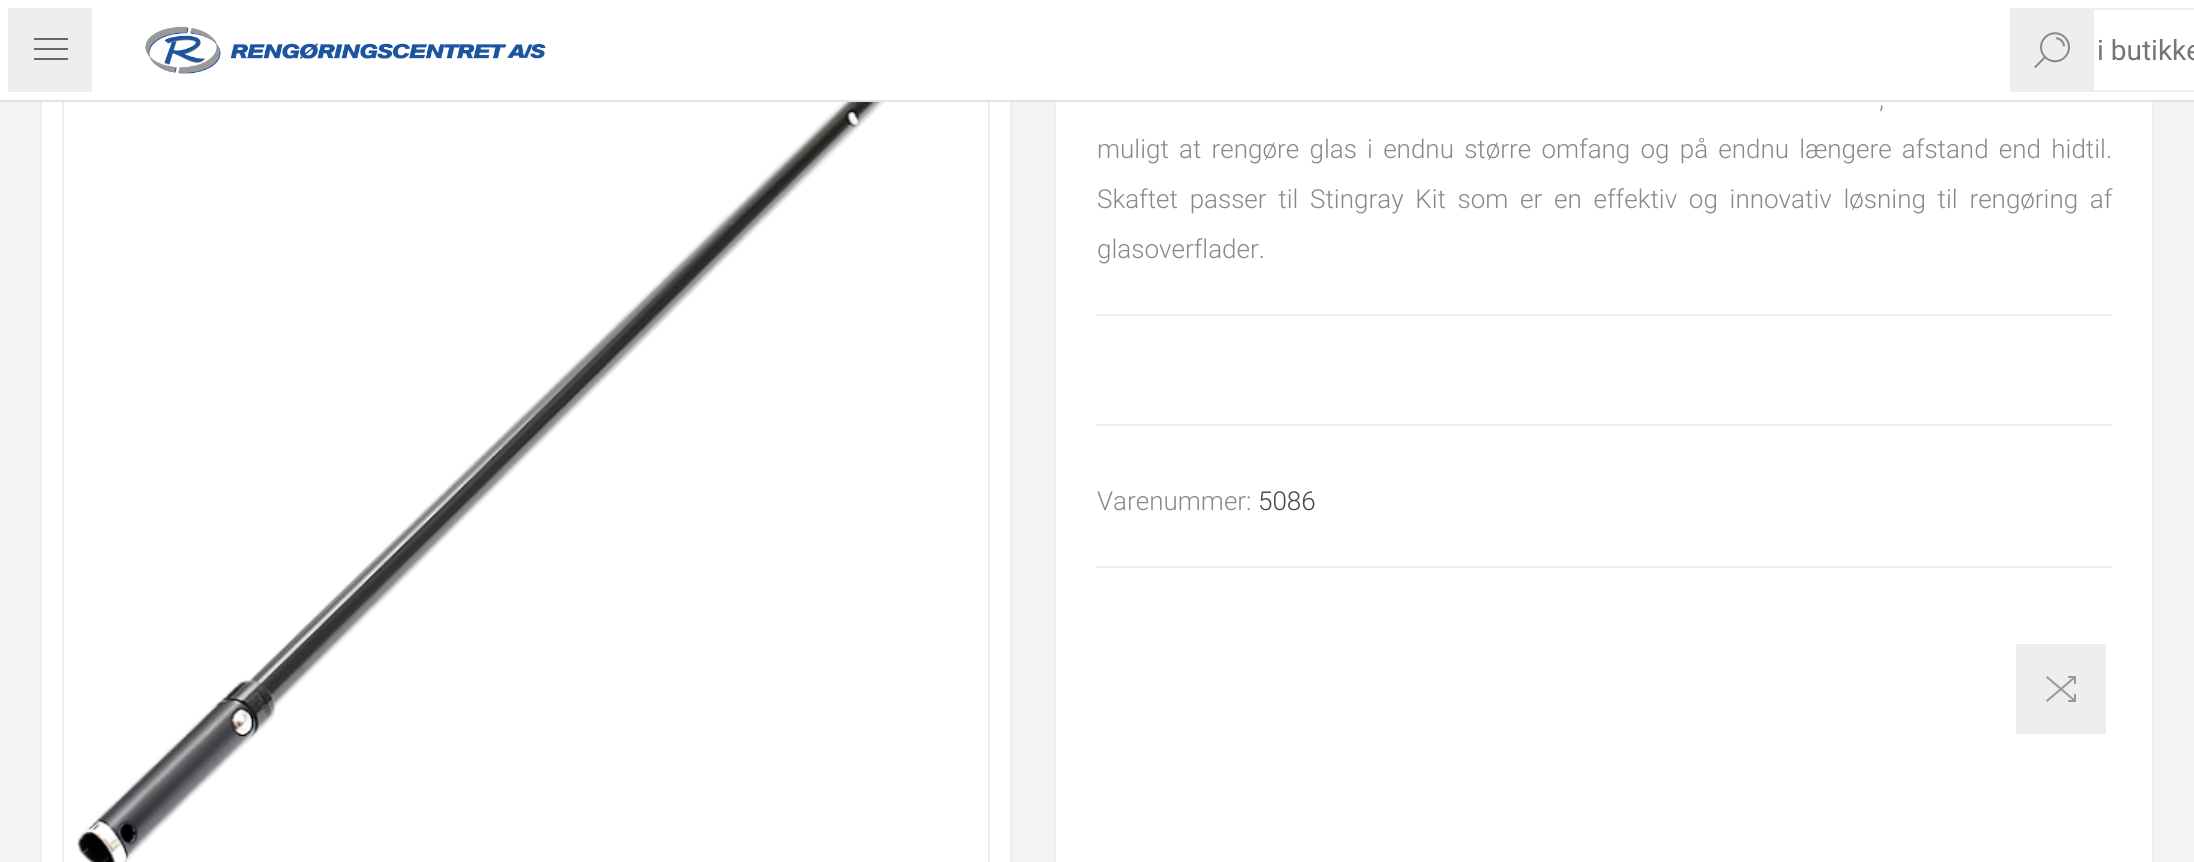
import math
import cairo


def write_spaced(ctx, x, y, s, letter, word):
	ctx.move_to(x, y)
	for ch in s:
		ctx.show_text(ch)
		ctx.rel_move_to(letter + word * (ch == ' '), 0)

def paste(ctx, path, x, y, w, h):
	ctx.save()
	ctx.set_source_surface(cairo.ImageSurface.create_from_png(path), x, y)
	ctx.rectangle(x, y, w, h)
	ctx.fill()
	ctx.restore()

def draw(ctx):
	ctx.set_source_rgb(0.953, 0.953, 0.953)
	ctx.paint()
	ctx.set_source_rgb(1, 1, 1)
	ctx.rectangle(42, 102, 968, 760)
	ctx.fill()
	ctx.rectangle(41, 33, 970, 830)
	ctx.set_source_rgb(0.933, 0.933, 0.933)
	ctx.stroke()
	ctx.rectangle(63, 55, 926, 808)
	ctx.stroke()
	ctx.rectangle(4, 4, 92, 92)
	ctx.fill_preserve()
	ctx.set_source_rgb(1, 1, 1)
	ctx.set_line_width(8)
	ctx.stroke()
	ctx.set_source_rgb(0.4, 0.4, 0.4)
	ctx.rectangle(34, 38, 34, 2)
	ctx.rectangle(34, 48, 34, 2)
	ctx.rectangle(34, 58, 34, 2)
	ctx.fill()
	ctx.set_source_rgb(1, 1, 1)
	ctx.rectangle(1056, 102, 1096, 760)
	ctx.fill()
	ctx.rectangle(1055, 33, 1098, 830)
	ctx.set_source_rgb(0.933, 0.933, 0.933)
	ctx.set_line_width(2)
	ctx.stroke()
	ctx.set_source_rgb(0.89, 0.89, 0.89)
	ctx.rectangle(0, 100, 2194, 2)
	ctx.fill()
	ctx.set_source_rgb(1, 1, 1)
	ctx.rectangle(100, 0, 2094, 100)
	ctx.fill()
	paste(ctx, 'media/1.png', 145, 26, 401, 48)
	ctx.rectangle(2011, 9, 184, 82)
	ctx.set_source_rgb(0.933, 0.933, 0.933)
	ctx.stroke()
	ctx.rectangle(2012, 10, 82, 80)
	ctx.fill()
	paste(ctx, 'media/2.png', 2034, 32, 36, 37)
	ctx.select_font_face('Roboto')
	ctx.set_font_size(28)
	ctx.set_source_rgb(0.459, 0.459, 0.459)
	ctx.move_to(2097, 60)
	ctx.show_text('i butikke')
	paste(ctx, 'media/3.png', 77, 102, 808, 760)
	ctx.set_source_rgb(0.933, 0.933, 0.933)
	ctx.rectangle(1096, 314, 1016, 2)
	ctx.fill()
	ctx.select_font_face('Roboto Light')
	ctx.set_font_size(26)
	ctx.set_source_rgb(0.533, 0.533, 0.533)
	write_spaced(ctx, 1879, 108, ',', 0, 3)
	write_spaced(ctx, 1097, 158, 'muligt at rengøre glas i endnu større omfang og på endnu længere afstand end hidtil.', 0, 3.9)
	write_spaced(ctx, 1097, 208, 'Skaftet passer til Stingray Kit som er en effektiv og innovativ løsning til rengøring af', 0, 5.4)
	ctx.move_to(1097, 258)
	ctx.show_text('glasoverflader.')
	ctx.set_source_rgb(0.933, 0.933, 0.933)
	ctx.rectangle(1096, 424, 1016, 2)
	ctx.fill()
	ctx.rectangle(1096, 566, 1016, 2)
	ctx.fill()
	ctx.set_source_rgb(0.533, 0.533, 0.533)
	ctx.move_to(1097, 510)
	ctx.show_text('Varenummer:')
	ctx.set_source_rgb(0.267, 0.267, 0.267)
	ctx.move_to(1258, 510)
	ctx.show_text('5086')
	ctx.set_source_rgb(0.933, 0.933, 0.933)
	ctx.rectangle(2016, 644, 90, 90)
	ctx.fill()
	paste(ctx, 'media/4.png', 2046, 676, 30, 26)


surface = cairo.ImageSurface(cairo.FORMAT_RGB24, 2194, 862)
ctx = cairo.Context(surface)
options = cairo.FontOptions()
options.set_hint_metrics(cairo.HINT_METRICS_OFF)
options.set_hint_style(cairo.HINT_STYLE_NONE)
ctx.set_font_options(options)
ctx.set_miter_limit(4)
draw(ctx)
surface.write_to_png('image.png')
